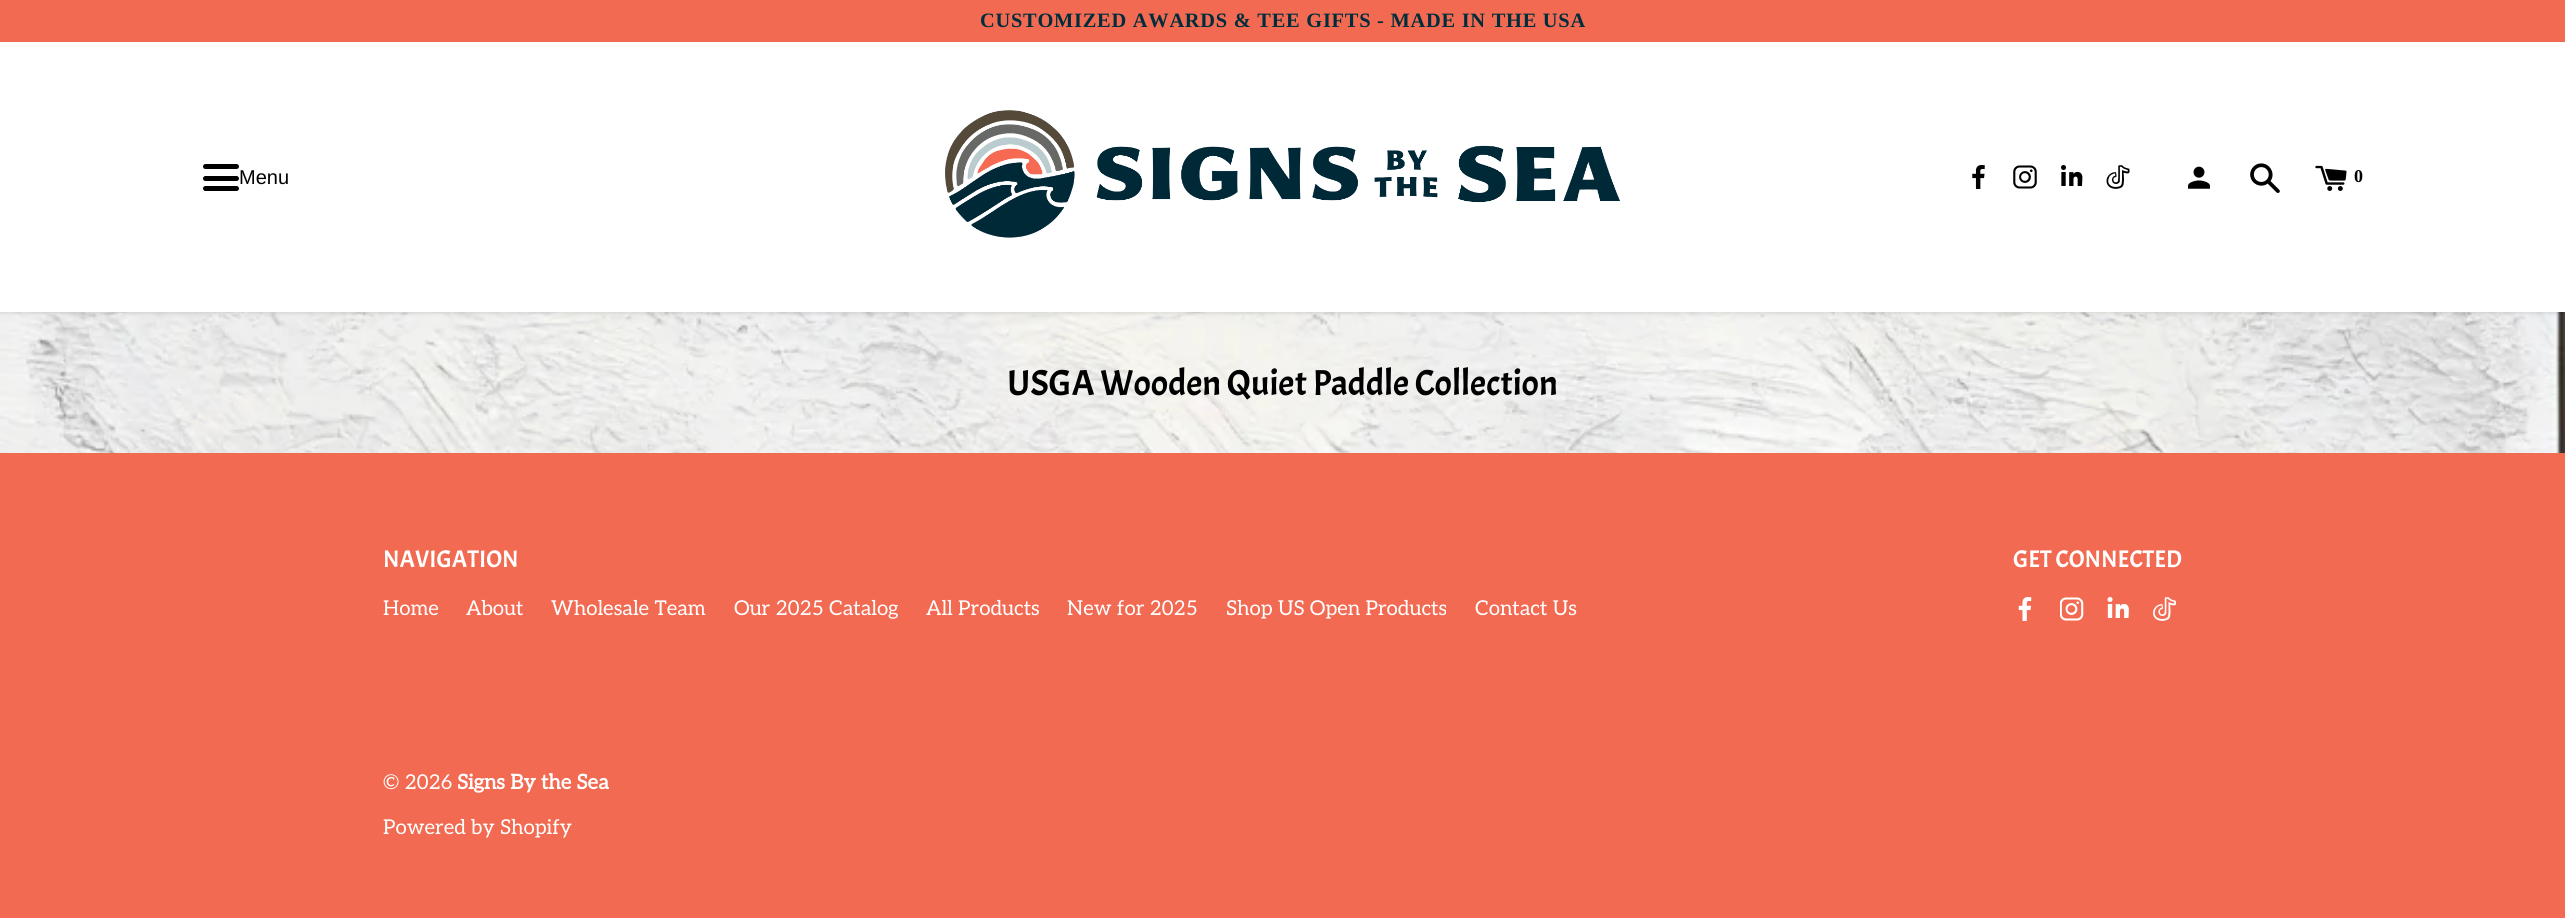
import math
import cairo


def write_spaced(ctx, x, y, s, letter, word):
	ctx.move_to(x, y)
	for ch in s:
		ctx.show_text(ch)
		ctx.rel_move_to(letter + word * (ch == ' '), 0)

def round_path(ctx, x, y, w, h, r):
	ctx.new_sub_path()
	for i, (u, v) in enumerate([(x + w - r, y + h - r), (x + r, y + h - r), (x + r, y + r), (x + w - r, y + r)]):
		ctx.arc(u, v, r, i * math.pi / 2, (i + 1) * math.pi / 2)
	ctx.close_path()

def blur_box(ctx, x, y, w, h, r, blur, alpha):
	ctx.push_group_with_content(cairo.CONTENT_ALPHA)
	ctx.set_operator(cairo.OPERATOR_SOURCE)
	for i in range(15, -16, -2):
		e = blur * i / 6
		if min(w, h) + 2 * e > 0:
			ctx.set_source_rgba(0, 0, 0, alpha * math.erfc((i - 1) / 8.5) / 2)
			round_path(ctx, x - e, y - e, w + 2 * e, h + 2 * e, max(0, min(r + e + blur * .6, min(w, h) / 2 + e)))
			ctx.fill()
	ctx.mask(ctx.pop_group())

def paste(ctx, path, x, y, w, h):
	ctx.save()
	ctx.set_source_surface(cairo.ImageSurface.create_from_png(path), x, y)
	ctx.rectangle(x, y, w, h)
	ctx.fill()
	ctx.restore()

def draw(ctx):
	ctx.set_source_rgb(1, 1, 1)
	ctx.paint()
	ctx.set_source_rgb(0.949, 0.416, 0.322)
	ctx.rectangle(0, 0, 2565, 42)
	ctx.fill()
	ctx.select_font_face('Liberation Serif', cairo.FONT_SLANT_NORMAL, cairo.FONT_WEIGHT_BOLD)
	ctx.set_font_size(20.4)
	ctx.set_source_rgb(0, 0.176, 0.231)
	write_spaced(ctx, 980, 27, 'CUSTOMIZED AWARDS & TEE GIFTS - MADE IN THE USA', 0.75, 0)
	paste(ctx, 'media/13.png', 0, 312, 2565, 141)
	ctx.set_source_rgb(0, 0, 0)
	blur_box(ctx, 0, 44, 2565, 270, 0, 2, 0.1)
	ctx.set_source_rgb(1, 1, 1)
	ctx.rectangle(0, 42, 2565, 270)
	ctx.fill()
	ctx.set_source_rgb(0, 0, 0)
	round_path(ctx, 203, 164, 36, 5, 2.5)
	ctx.fill()
	round_path(ctx, 203, 176, 36, 5, 2.5)
	ctx.fill()
	round_path(ctx, 203, 186, 36, 5, 2.5)
	ctx.fill()
	ctx.select_font_face('Liberation Sans')
	ctx.set_font_size(20)
	ctx.move_to(239, 184)
	ctx.show_text('Menu')
	paste(ctx, 'media/1.png', 945, 110, 675, 128)
	paste(ctx, 'media/2.png', 1972, 165, 13, 24)
	paste(ctx, 'media/3.png', 2013, 165, 24, 24)
	paste(ctx, 'media/4.png', 2061, 165, 22, 21)
	paste(ctx, 'media/5.png', 2106, 165, 24, 24)
	paste(ctx, 'media/6.png', 2187, 166, 23, 23)
	paste(ctx, 'media/7.png', 2250, 163, 30, 30)
	paste(ctx, 'media/8.png', 2315, 165, 32, 26)
	ctx.select_font_face('Liberation Serif', cairo.FONT_SLANT_NORMAL, cairo.FONT_WEIGHT_BOLD)
	ctx.set_font_size(18)
	ctx.move_to(2354, 182)
	ctx.show_text('0')
	ctx.select_font_face('Acme')
	ctx.set_font_size(36)
	ctx.move_to(1007, 395)
	ctx.show_text('USGA Wooden Quiet Paddle Collection')
	ctx.set_source_rgb(0.949, 0.416, 0.322)
	ctx.rectangle(0, 453, 2565, 465)
	ctx.fill()
	ctx.set_font_size(24)
	ctx.set_source_rgb(1, 1, 1)
	ctx.move_to(383, 567)
	ctx.show_text('NAVIGATION')
	ctx.select_font_face('Aleo')
	ctx.set_font_size(20.4)
	for x, y, s in [
		(383, 615, 'Home'),
		(466, 615, 'About'),
		(551, 615, 'Wholesale Team'),
		(734, 615, 'Our 2025 Catalog'),
		(926, 615, 'All Products'),
		(1067, 615, 'New for 2025'),
		(1226, 615, 'Shop US Open Products'),
		(1475, 615, 'Contact Us'),
		(383, 789, '© 2026'),
	]:
		ctx.move_to(x, y)
		ctx.show_text(s)
	ctx.select_font_face('Aleo', cairo.FONT_SLANT_NORMAL, cairo.FONT_WEIGHT_BOLD)
	ctx.move_to(457, 789)
	ctx.show_text('Signs By the Sea')
	ctx.select_font_face('Aleo')
	ctx.move_to(383, 834)
	ctx.show_text('Powered by Shopify')
	ctx.select_font_face('Acme')
	ctx.set_font_size(24)
	ctx.move_to(2013, 567)
	ctx.show_text('GET CONNECTED')
	paste(ctx, 'media/9.png', 2018, 597, 14, 24)
	paste(ctx, 'media/10.png', 2060, 597, 24, 24)
	paste(ctx, 'media/11.png', 2107, 597, 22, 21)
	paste(ctx, 'media/12.png', 2153, 597, 23, 24)


surface = cairo.ImageSurface(cairo.FORMAT_RGB24, 2565, 918)
ctx = cairo.Context(surface)
options = cairo.FontOptions()
options.set_hint_metrics(cairo.HINT_METRICS_OFF)
options.set_hint_style(cairo.HINT_STYLE_NONE)
ctx.set_font_options(options)
ctx.set_miter_limit(4)
draw(ctx)
surface.write_to_png('image.png')
